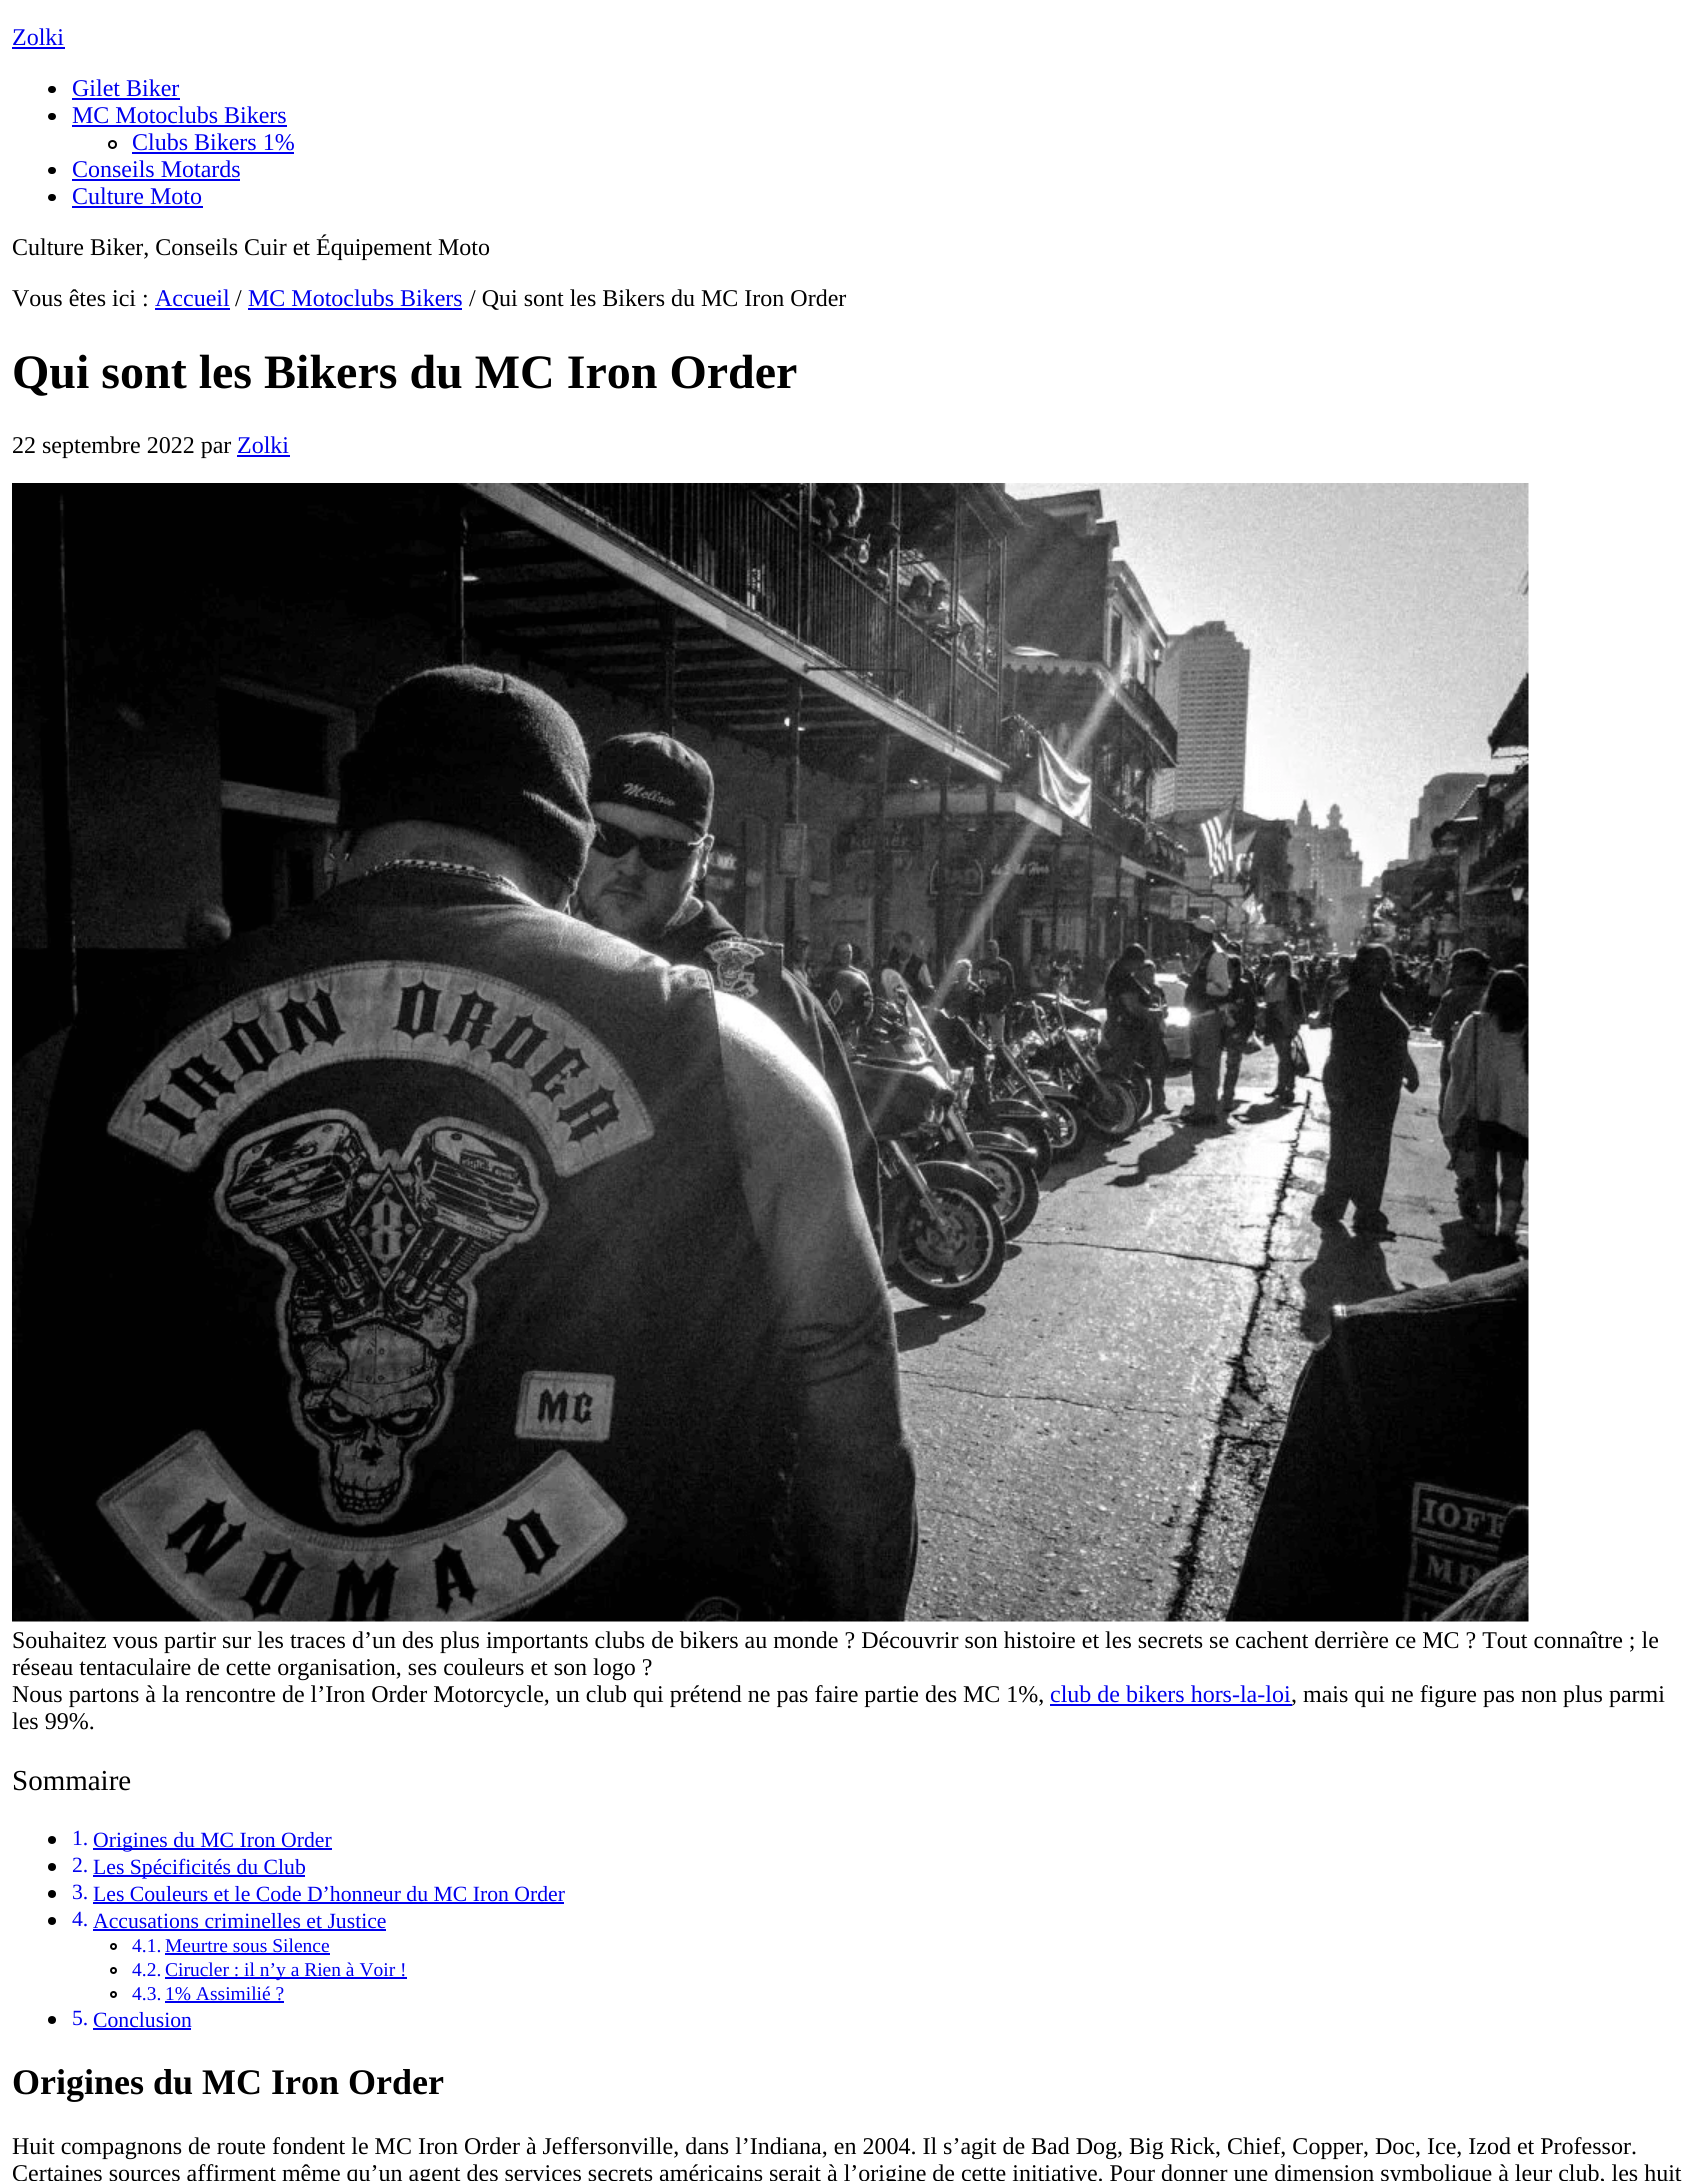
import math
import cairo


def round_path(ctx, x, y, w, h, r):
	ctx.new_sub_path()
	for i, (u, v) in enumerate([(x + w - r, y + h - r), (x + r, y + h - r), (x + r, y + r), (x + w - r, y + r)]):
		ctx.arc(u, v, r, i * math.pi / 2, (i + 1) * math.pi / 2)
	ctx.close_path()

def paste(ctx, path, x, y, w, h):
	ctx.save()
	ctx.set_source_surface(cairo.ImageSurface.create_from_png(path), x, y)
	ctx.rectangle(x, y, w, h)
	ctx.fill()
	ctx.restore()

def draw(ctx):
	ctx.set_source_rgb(1, 1, 1)
	ctx.paint()
	ctx.select_font_face('Liberation Serif')
	ctx.set_font_size(24)
	ctx.set_source_rgb(0, 0, 0.933)
	ctx.move_to(12, 45)
	ctx.show_text('Zolki')
	ctx.rectangle(12, 47, 53, 2)
	ctx.fill()
	ctx.set_source_rgb(0, 0, 0)
	round_path(ctx, 48, 86, 8, 7, 3.5)
	ctx.fill()
	ctx.set_source_rgb(0, 0, 0.933)
	ctx.move_to(72, 96)
	ctx.show_text('Gilet Biker')
	ctx.rectangle(72, 98, 108, 2)
	ctx.fill()
	ctx.set_source_rgb(0, 0, 0)
	round_path(ctx, 48, 113, 8, 7, 3.5)
	ctx.fill()
	ctx.set_source_rgb(0, 0, 0.933)
	ctx.move_to(72, 123)
	ctx.show_text('MC Motoclubs Bikers')
	ctx.rectangle(72, 125, 215, 2)
	ctx.fill()
	ctx.arc(112.5, 144.5, 3.5, 0, 2 * math.pi)
	ctx.set_source_rgb(0, 0, 0)
	ctx.stroke()
	ctx.set_source_rgb(0, 0, 0.933)
	ctx.move_to(132, 150)
	ctx.show_text('Clubs Bikers 1%')
	ctx.rectangle(132, 152, 162, 2)
	ctx.fill()
	ctx.set_source_rgb(0, 0, 0)
	round_path(ctx, 48, 167, 8, 7, 3.5)
	ctx.fill()
	ctx.set_source_rgb(0, 0, 0.933)
	ctx.move_to(72, 177)
	ctx.show_text('Conseils Motards')
	ctx.rectangle(72, 179, 168, 2)
	ctx.fill()
	ctx.set_source_rgb(0, 0, 0)
	round_path(ctx, 48, 194, 8, 7, 3.5)
	ctx.fill()
	ctx.set_source_rgb(0, 0, 0.933)
	ctx.move_to(72, 204)
	ctx.show_text('Culture Moto')
	ctx.rectangle(72, 206, 131, 2)
	ctx.fill()
	ctx.set_source_rgb(0, 0, 0)
	ctx.move_to(12, 255)
	ctx.show_text('Culture Biker, Conseils Cuir et Équipement Moto')
	ctx.move_to(12, 306)
	ctx.show_text('Vous êtes ici :')
	ctx.set_source_rgb(0, 0, 0.933)
	ctx.move_to(155, 306)
	ctx.show_text('Accueil')
	ctx.rectangle(155, 308, 75, 2)
	ctx.fill()
	ctx.set_source_rgb(0, 0, 0)
	ctx.move_to(235, 306)
	ctx.show_text('/')
	ctx.set_source_rgb(0, 0, 0.933)
	ctx.move_to(248, 306)
	ctx.show_text('MC Motoclubs Bikers')
	ctx.rectangle(248, 308, 214, 2)
	ctx.fill()
	ctx.set_source_rgb(0, 0, 0)
	ctx.move_to(469, 306)
	ctx.show_text('/ Qui sont les Bikers du MC Iron Order')
	ctx.select_font_face('Liberation Serif', cairo.FONT_SLANT_NORMAL, cairo.FONT_WEIGHT_BOLD)
	ctx.set_font_size(48)
	ctx.move_to(12, 388)
	ctx.show_text('Qui sont les Bikers du MC Iron Order')
	ctx.select_font_face('Liberation Serif')
	ctx.set_font_size(24)
	ctx.move_to(12, 453)
	ctx.show_text('22 septembre 2022 par')
	ctx.set_source_rgb(0, 0, 0.933)
	ctx.move_to(237, 453)
	ctx.show_text('Zolki')
	ctx.rectangle(237, 455, 53, 2)
	ctx.fill()
	paste(ctx, 'media/1.png', 12, 483, 1517, 1139)
	ctx.set_source_rgb(0, 0, 0)
	for x, y, s in [
		(12, 1648, 'Souhaitez vous partir sur les traces d’un des plus importants clubs de bikers au monde ? Découvrir son histoire et les secrets se cachent derrière ce MC ? Tout connaître ; le'),
		(12, 1675, 'réseau tentaculaire de cette organisation, ses couleurs et son logo ?'),
		(12, 1702, 'Nous partons à la rencontre de l’Iron Order Motorcycle, un club qui prétend ne pas faire partie des MC 1%,'),
	]:
		ctx.move_to(x, y)
		ctx.show_text(s)
	ctx.set_source_rgb(0, 0, 0.933)
	ctx.move_to(1050, 1702)
	ctx.show_text('club de bikers hors-la-loi')
	ctx.rectangle(1050, 1704, 242, 2)
	ctx.fill()
	ctx.set_source_rgb(0, 0, 0)
	ctx.move_to(1291, 1702)
	ctx.show_text(', mais qui ne figure pas non plus parmi')
	ctx.move_to(12, 1729)
	ctx.show_text('les 99%.')
	ctx.set_font_size(29)
	ctx.move_to(12, 1790)
	ctx.show_text('Sommaire')
	ctx.new_path()
	ctx.arc(52, 1840, 4, 0, 2 * math.pi)
	ctx.fill()
	ctx.set_font_size(21.7)
	ctx.set_source_rgb(0, 0, 0.933)
	ctx.move_to(72, 1845)
	ctx.show_text('1.')
	ctx.rectangle(93, 1848, 239, 2)
	ctx.fill()
	ctx.move_to(93, 1847)
	ctx.show_text('Origines du MC Iron Order')
	ctx.set_source_rgb(0, 0, 0)
	ctx.new_path()
	ctx.arc(52, 1867, 4, 0, 2 * math.pi)
	ctx.fill()
	ctx.set_source_rgb(0, 0, 0.933)
	ctx.move_to(72, 1872)
	ctx.show_text('2.')
	ctx.rectangle(93, 1875, 212, 2)
	ctx.fill()
	ctx.move_to(93, 1874)
	ctx.show_text('Les Spécificités du Club')
	ctx.set_source_rgb(0, 0, 0)
	ctx.new_path()
	ctx.arc(52, 1894, 4, 0, 2 * math.pi)
	ctx.fill()
	ctx.set_source_rgb(0, 0, 0.933)
	ctx.move_to(72, 1899)
	ctx.show_text('3.')
	ctx.move_to(93, 1901)
	ctx.show_text('Les Couleurs et le Code D’honneur du MC Iron Order')
	ctx.rectangle(93, 1902, 471, 2)
	ctx.fill()
	ctx.set_source_rgb(0, 0, 0)
	ctx.arc(52, 1921, 4, 0, 2 * math.pi)
	ctx.fill()
	ctx.set_source_rgb(0, 0, 0.933)
	ctx.move_to(72, 1926)
	ctx.show_text('4.')
	ctx.move_to(93, 1928)
	ctx.show_text('Accusations criminelles et Justice')
	ctx.rectangle(93, 1929, 293, 2)
	ctx.fill()
	ctx.arc(113.5, 1946.5, 2.5, 0, 2 * math.pi)
	ctx.set_source_rgb(0, 0, 0)
	ctx.stroke()
	ctx.set_font_size(19.5)
	ctx.set_source_rgb(0, 0, 0.933)
	ctx.move_to(132, 1952)
	ctx.show_text('4.1.')
	ctx.move_to(165, 1952)
	ctx.show_text('Meurtre sous Silence')
	ctx.rectangle(165, 1953, 165, 2)
	ctx.fill()
	ctx.arc(113.5, 1970.5, 2.5, 0, 2 * math.pi)
	ctx.set_source_rgb(0, 0, 0)
	ctx.stroke()
	ctx.set_source_rgb(0, 0, 0.933)
	ctx.move_to(132, 1976)
	ctx.show_text('4.2.')
	ctx.rectangle(165, 1977, 242, 2)
	ctx.fill()
	ctx.move_to(165, 1976)
	ctx.show_text('Cirucler : il n’y a Rien à Voir !')
	ctx.new_path()
	ctx.arc(113.5, 1994.5, 2.5, 0, 2 * math.pi)
	ctx.set_source_rgb(0, 0, 0)
	ctx.stroke()
	ctx.set_source_rgb(0, 0, 0.933)
	ctx.move_to(132, 2000)
	ctx.show_text('4.3.')
	ctx.move_to(165, 2000)
	ctx.show_text('1% Assimilié ?')
	ctx.rectangle(165, 2001, 119, 2)
	ctx.fill()
	ctx.set_source_rgb(0, 0, 0)
	ctx.arc(52, 2020, 4, 0, 2 * math.pi)
	ctx.fill()
	ctx.set_font_size(21.7)
	ctx.set_source_rgb(0, 0, 0.933)
	ctx.move_to(72, 2025)
	ctx.show_text('5.')
	ctx.move_to(93, 2027)
	ctx.show_text('Conclusion')
	ctx.rectangle(93, 2028, 98, 2)
	ctx.fill()
	ctx.select_font_face('Liberation Serif', cairo.FONT_SLANT_NORMAL, cairo.FONT_WEIGHT_BOLD)
	ctx.set_font_size(36)
	ctx.set_source_rgb(0, 0, 0)
	ctx.move_to(12, 2094)
	ctx.show_text('Origines du MC Iron Order')
	ctx.select_font_face('Liberation Serif')
	ctx.set_font_size(24)
	ctx.move_to(12, 2154)
	ctx.show_text('Huit compagnons de route fondent le MC Iron Order à Jeffersonville, dans l’Indiana, en 2004. Il s’agit de Bad Dog, Big Rick, Chief, Copper, Doc, Ice, Izod et Professor.')
	ctx.move_to(12, 2181)
	ctx.show_text('Certaines sources affirment même qu’un agent des services secrets américains serait à l’origine de cette initiative. Pour donner une dimension symbolique à leur club, les huit')


surface = cairo.ImageSurface(cairo.FORMAT_RGB24, 1703, 2181)
ctx = cairo.Context(surface)
options = cairo.FontOptions()
options.set_hint_metrics(cairo.HINT_METRICS_OFF)
options.set_hint_style(cairo.HINT_STYLE_NONE)
ctx.set_font_options(options)
ctx.set_miter_limit(4)
draw(ctx)
surface.write_to_png('image.png')
